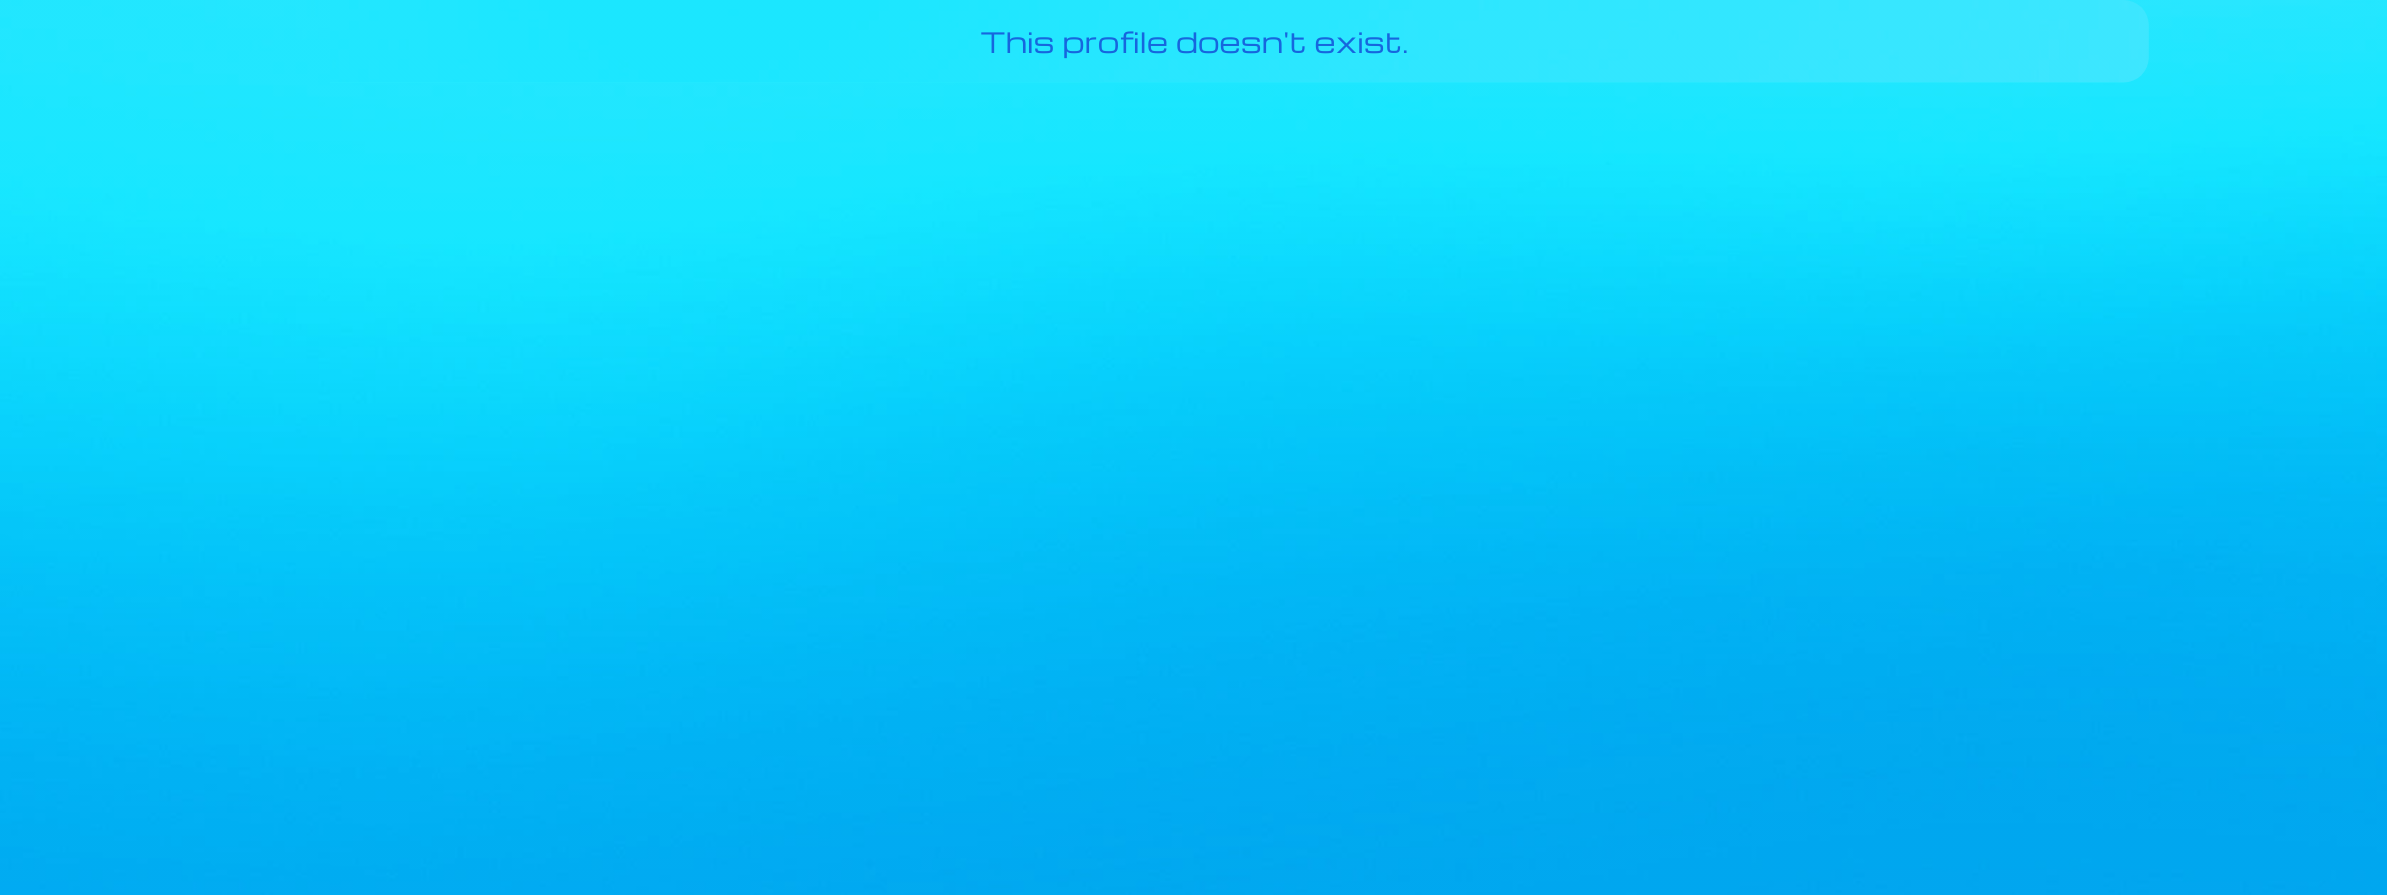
import math
import cairo


def paste(ctx, path, x, y, w, h):
	ctx.save()
	ctx.set_source_surface(cairo.ImageSurface.create_from_png(path), x, y)
	ctx.rectangle(x, y, w, h)
	ctx.fill()
	ctx.restore()

def draw(ctx):
	ctx.set_source_rgb(1, 1, 1)
	ctx.paint()
	paste(ctx, 'media/1.png', 0, 0, 2387, 895)
	paste(ctx, 'media/2.png', 330, 0, 1819, 83)
	ctx.select_font_face('Michroma')
	ctx.set_font_size(27.5)
	ctx.set_source_rgb(0.086, 0.4, 0.871)
	ctx.move_to(980, 53)
	ctx.show_text('This profile doesn\'t exist.')


surface = cairo.ImageSurface(cairo.FORMAT_RGB24, 2387, 895)
ctx = cairo.Context(surface)
options = cairo.FontOptions()
options.set_hint_metrics(cairo.HINT_METRICS_OFF)
options.set_hint_style(cairo.HINT_STYLE_NONE)
ctx.set_font_options(options)
ctx.set_miter_limit(4)
draw(ctx)
surface.write_to_png('image.png')
